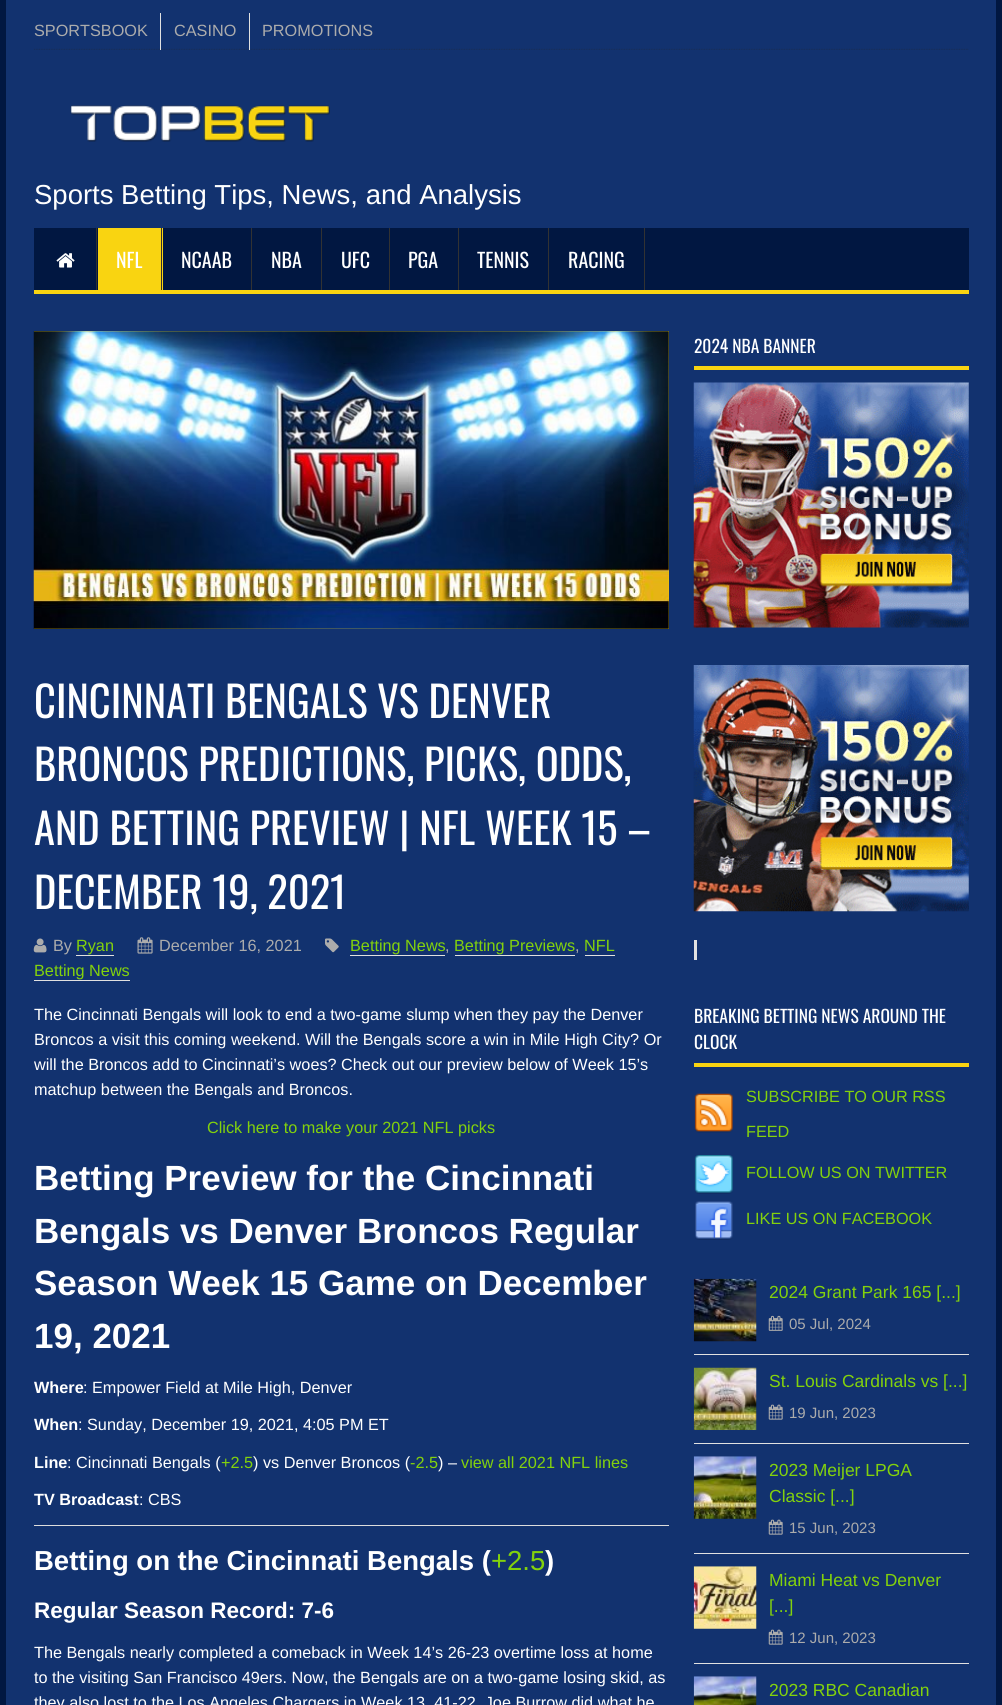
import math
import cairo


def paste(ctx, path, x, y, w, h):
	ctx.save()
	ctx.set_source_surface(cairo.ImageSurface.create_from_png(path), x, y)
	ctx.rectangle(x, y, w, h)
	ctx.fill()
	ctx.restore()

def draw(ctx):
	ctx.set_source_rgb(0.071, 0.196, 0.435)
	ctx.paint()
	ctx.set_source_rgb(0.004, 0.09, 0.255)
	ctx.rectangle(996, 0, 6, 1705)
	ctx.fill()
	ctx.rectangle(0, 0, 6, 1705)
	ctx.fill()
	paste(ctx, 'media/1.png', 34, 48, 935, 2)
	ctx.set_source_rgb(0.882, 0.882, 0.882)
	ctx.rectangle(160, 13, 1, 37)
	ctx.fill()
	ctx.select_font_face('Liberation Sans')
	ctx.set_font_size(16.25)
	ctx.set_source_rgb(0.675, 0.675, 0.675)
	ctx.move_to(34, 36)
	ctx.show_text('SPORTSBOOK')
	ctx.set_source_rgb(0.882, 0.882, 0.882)
	ctx.rectangle(249, 13, 1, 37)
	ctx.fill()
	ctx.set_source_rgb(0.675, 0.675, 0.675)
	ctx.move_to(174, 36)
	ctx.show_text('CASINO')
	ctx.move_to(262, 36)
	ctx.show_text('PROMOTIONS')
	paste(ctx, 'media/2.png', 70, 105, 260, 37)
	ctx.set_font_size(27.5)
	ctx.set_source_rgb(1, 1, 1)
	ctx.move_to(34, 204)
	ctx.show_text('Sports Betting Tips, News, and Analysis')
	ctx.set_source_rgb(0.004, 0.09, 0.255)
	ctx.rectangle(34, 228, 935, 62)
	ctx.fill()
	ctx.set_source_rgb(0.973, 0.831, 0.067)
	ctx.rectangle(34, 290, 935, 4)
	ctx.fill()
	ctx.set_source_rgb(0.196, 0.196, 0.196)
	ctx.rectangle(96, 228, 1, 62)
	ctx.fill()
	paste(ctx, 'media/3.png', 56, 253, 19, 15)
	ctx.set_source_rgb(0.973, 0.831, 0.067)
	ctx.rectangle(98, 228, 65, 62)
	ctx.fill()
	ctx.set_source_rgb(0.196, 0.196, 0.196)
	ctx.rectangle(161, 228, 1, 62)
	ctx.fill()
	ctx.select_font_face('Oswald')
	ctx.set_font_size(20)
	ctx.set_source_rgb(1, 1, 1)
	ctx.move_to(116, 268)
	ctx.show_text('NFL')
	ctx.set_source_rgb(0.196, 0.196, 0.196)
	ctx.rectangle(251, 228, 1, 62)
	ctx.fill()
	ctx.set_source_rgb(1, 1, 1)
	ctx.move_to(181, 268)
	ctx.show_text('NCAAB')
	ctx.set_source_rgb(0.196, 0.196, 0.196)
	ctx.rectangle(321, 228, 1, 62)
	ctx.fill()
	ctx.set_source_rgb(1, 1, 1)
	ctx.move_to(271, 268)
	ctx.show_text('NBA')
	ctx.set_source_rgb(0.196, 0.196, 0.196)
	ctx.rectangle(389, 228, 1, 62)
	ctx.fill()
	ctx.set_source_rgb(1, 1, 1)
	ctx.move_to(341, 268)
	ctx.show_text('UFC')
	ctx.set_source_rgb(0.196, 0.196, 0.196)
	ctx.rectangle(458, 228, 1, 62)
	ctx.fill()
	ctx.set_source_rgb(1, 1, 1)
	ctx.move_to(408, 268)
	ctx.show_text('PGA')
	ctx.set_source_rgb(0.196, 0.196, 0.196)
	ctx.rectangle(548, 228, 1, 62)
	ctx.fill()
	ctx.set_source_rgb(1, 1, 1)
	ctx.move_to(477, 268)
	ctx.show_text('TENNIS')
	ctx.set_source_rgb(0.196, 0.196, 0.196)
	ctx.rectangle(644, 228, 1, 62)
	ctx.fill()
	ctx.set_source_rgb(1, 1, 1)
	ctx.move_to(568, 268)
	ctx.show_text('RACING')
	ctx.set_source_rgb(0.973, 0.831, 0.067)
	ctx.rectangle(34, 331, 635, 298)
	ctx.fill()
	paste(ctx, 'media/4.png', 33, 331, 636, 298)
	ctx.set_font_size(42.5)
	ctx.set_source_rgb(1, 1, 1)
	for x, y, s in [
		(34, 718, 'CINCINNATI BENGALS VS DENVER'),
		(34, 781, 'BRONCOS PREDICTIONS, PICKS, ODDS,'),
		(34, 845, 'AND BETTING PREVIEW | NFL WEEK 15 –'),
		(34, 909, 'DECEMBER 19, 2021'),
	]:
		ctx.move_to(x, y)
		ctx.show_text(s)
	paste(ctx, 'media/5.png', 33, 938, 14, 15)
	ctx.select_font_face('Liberation Sans')
	ctx.set_font_size(16.25)
	ctx.set_source_rgb(0.675, 0.675, 0.675)
	ctx.move_to(53, 951)
	ctx.show_text('By')
	ctx.set_source_rgb(0.514, 0.824, 0.047)
	ctx.move_to(76, 951)
	ctx.show_text('Ryan')
	ctx.set_source_rgb(0.882, 0.882, 0.882)
	ctx.rectangle(76, 955, 38, 1)
	ctx.fill()
	paste(ctx, 'media/6.png', 137, 937, 16, 17)
	ctx.set_source_rgb(0.675, 0.675, 0.675)
	ctx.move_to(159, 951)
	ctx.show_text('December 16, 2021')
	paste(ctx, 'media/7.png', 325, 938, 14, 15)
	ctx.set_source_rgb(0.514, 0.824, 0.047)
	for x, y, s in [
		(350, 951, 'Betting News'),
		(454, 951, 'Betting Previews'),
		(584, 951, 'NFL'),
	]:
		ctx.move_to(x, y)
		ctx.show_text(s)
	ctx.set_source_rgb(0.675, 0.675, 0.675)
	ctx.move_to(445, 951)
	ctx.show_text(',')
	ctx.set_source_rgb(0.882, 0.882, 0.882)
	ctx.rectangle(350, 955, 95, 1)
	ctx.fill()
	ctx.set_source_rgb(0.675, 0.675, 0.675)
	ctx.move_to(575, 951)
	ctx.show_text(',')
	ctx.set_source_rgb(0.882, 0.882, 0.882)
	ctx.rectangle(455, 955, 120, 1)
	ctx.fill()
	ctx.rectangle(585, 955, 30, 1)
	ctx.fill()
	ctx.set_source_rgb(0.514, 0.824, 0.047)
	ctx.move_to(34, 976)
	ctx.show_text('Betting News')
	ctx.set_source_rgb(0.882, 0.882, 0.882)
	ctx.rectangle(34, 980, 96, 1)
	ctx.fill()
	ctx.set_source_rgb(1, 1, 1)
	for x, y, s in [
		(34, 1020, 'The Cincinnati Bengals will look to end a two-game slump when they pay the Denver'),
		(34, 1045, 'Broncos a visit this coming weekend. Will the Bengals score a win in Mile High City? Or'),
		(34, 1070, 'will the Broncos add to Cincinnati’s woes? Check out our preview below of Week 15’s'),
		(34, 1095, 'matchup between the Bengals and Broncos.'),
	]:
		ctx.move_to(x, y)
		ctx.show_text(s)
	ctx.set_source_rgb(0.514, 0.824, 0.047)
	ctx.move_to(207, 1133)
	ctx.show_text('Click here to make your 2021 NFL picks')
	ctx.select_font_face('Liberation Sans', cairo.FONT_SLANT_NORMAL, cairo.FONT_WEIGHT_BOLD)
	ctx.set_font_size(35)
	ctx.set_source_rgb(1, 1, 1)
	for x, y, s in [
		(34, 1190, 'Betting Preview for the Cincinnati'),
		(34, 1243, 'Bengals vs Denver Broncos Regular'),
		(34, 1295, 'Season Week 15 Game on December'),
		(34, 1348, '19, 2021'),
	]:
		ctx.move_to(x, y)
		ctx.show_text(s)
	ctx.set_font_size(16.25)
	ctx.move_to(34, 1393)
	ctx.show_text('Where')
	ctx.select_font_face('Liberation Sans')
	ctx.move_to(83, 1393)
	ctx.show_text(': Empower Field at Mile High, Denver')
	ctx.select_font_face('Liberation Sans', cairo.FONT_SLANT_NORMAL, cairo.FONT_WEIGHT_BOLD)
	ctx.move_to(34, 1430)
	ctx.show_text('When')
	ctx.select_font_face('Liberation Sans')
	ctx.move_to(78, 1430)
	ctx.show_text(': Sunday, December 19, 2021, 4:05 PM ET')
	ctx.select_font_face('Liberation Sans', cairo.FONT_SLANT_NORMAL, cairo.FONT_WEIGHT_BOLD)
	ctx.move_to(34, 1468)
	ctx.show_text('Line')
	ctx.select_font_face('Liberation Sans')
	ctx.move_to(67, 1468)
	ctx.show_text(': Cincinnati Bengals (')
	ctx.set_source_rgb(0.514, 0.824, 0.047)
	ctx.move_to(221, 1468)
	ctx.show_text('+2.5')
	ctx.set_source_rgb(1, 1, 1)
	ctx.move_to(253, 1468)
	ctx.show_text(') vs Denver Broncos (')
	ctx.set_source_rgb(0.514, 0.824, 0.047)
	ctx.move_to(410, 1468)
	ctx.show_text('-2.5')
	ctx.set_source_rgb(1, 1, 1)
	ctx.move_to(438, 1468)
	ctx.show_text(') –')
	ctx.set_source_rgb(0.514, 0.824, 0.047)
	ctx.move_to(461, 1468)
	ctx.show_text('view all 2021 NFL lines')
	ctx.select_font_face('Liberation Sans', cairo.FONT_SLANT_NORMAL, cairo.FONT_WEIGHT_BOLD)
	ctx.set_source_rgb(1, 1, 1)
	ctx.move_to(34, 1505)
	ctx.show_text('TV Broadcast')
	ctx.select_font_face('Liberation Sans')
	ctx.move_to(139, 1505)
	ctx.show_text(': CBS')
	ctx.set_source_rgb(0.867, 0.867, 0.867)
	ctx.rectangle(34, 1525, 635, 1)
	ctx.fill()
	ctx.select_font_face('Liberation Sans', cairo.FONT_SLANT_NORMAL, cairo.FONT_WEIGHT_BOLD)
	ctx.set_font_size(27.5)
	ctx.set_source_rgb(1, 1, 1)
	ctx.move_to(34, 1570)
	ctx.show_text('Betting on the Cincinnati Bengals (')
	ctx.select_font_face('Liberation Sans')
	ctx.set_source_rgb(0.514, 0.824, 0.047)
	ctx.move_to(491, 1570)
	ctx.show_text('+2.5')
	ctx.select_font_face('Liberation Sans', cairo.FONT_SLANT_NORMAL, cairo.FONT_WEIGHT_BOLD)
	ctx.set_source_rgb(1, 1, 1)
	ctx.move_to(545, 1570)
	ctx.show_text(')')
	ctx.set_font_size(22.5)
	ctx.move_to(34, 1618)
	ctx.show_text('Regular Season Record: 7-6')
	ctx.select_font_face('Liberation Sans')
	ctx.set_font_size(16.25)
	for x, y, s in [
		(34, 1658, 'The Bengals nearly completed a comeback in Week 14’s 26-23 overtime loss at home'),
		(34, 1683, 'to the visiting San Francisco 49ers. Now, the Bengals are on a two-game losing skid, as'),
		(34, 1708, 'they also lost to the Los Angeles Chargers in Week 13, 41-22. Joe Burrow did what he'),
	]:
		ctx.move_to(x, y)
		ctx.show_text(s)
	ctx.set_source_rgb(0.973, 0.831, 0.067)
	ctx.rectangle(694, 366, 275, 4)
	ctx.fill()
	ctx.select_font_face('Oswald')
	ctx.set_font_size(17.5)
	ctx.set_source_rgb(1, 1, 1)
	ctx.move_to(694, 353)
	ctx.show_text('2024 NBA BANNER')
	paste(ctx, 'media/8.png', 693, 382, 276, 246)
	paste(ctx, 'media/9.png', 693, 665, 276, 247)
	ctx.set_source_rgb(0.882, 0.882, 0.882)
	ctx.rectangle(694, 940, 3, 20)
	ctx.fill()
	ctx.set_source_rgb(0.973, 0.831, 0.067)
	ctx.rectangle(694, 1063, 275, 4)
	ctx.fill()
	ctx.set_source_rgb(1, 1, 1)
	ctx.move_to(694, 1023)
	ctx.show_text('BREAKING BETTING NEWS AROUND THE')
	ctx.move_to(694, 1049)
	ctx.show_text('CLOCK')
	paste(ctx, 'media/10.png', 694, 1093, 39, 40)
	ctx.select_font_face('Liberation Sans')
	ctx.set_font_size(16.25)
	ctx.set_source_rgb(0.514, 0.824, 0.047)
	ctx.move_to(746, 1102)
	ctx.show_text('SUBSCRIBE TO OUR RSS')
	ctx.move_to(746, 1137)
	ctx.show_text('FEED')
	paste(ctx, 'media/11.png', 694, 1155, 39, 39)
	ctx.move_to(746, 1178)
	ctx.show_text('FOLLOW US ON TWITTER')
	paste(ctx, 'media/12.png', 695, 1201, 38, 39)
	ctx.move_to(746, 1224)
	ctx.show_text('LIKE US ON FACEBOOK')
	ctx.set_source_rgb(0.882, 0.882, 0.882)
	ctx.rectangle(694, 1354, 275, 1)
	ctx.fill()
	paste(ctx, 'media/13.png', 693, 1278, 64, 64)
	ctx.set_font_size(17.5)
	ctx.set_source_rgb(0.514, 0.824, 0.047)
	ctx.move_to(769, 1298)
	ctx.show_text('2024 Grant Park 165 [...]')
	paste(ctx, 'media/14.png', 768, 1315, 15, 16)
	ctx.set_font_size(15)
	ctx.set_source_rgb(0.675, 0.675, 0.675)
	ctx.move_to(789, 1329)
	ctx.show_text('05 Jul, 2024')
	ctx.set_source_rgb(0.882, 0.882, 0.882)
	ctx.rectangle(694, 1443, 275, 1)
	ctx.fill()
	paste(ctx, 'media/15.png', 693, 1367, 64, 63)
	ctx.set_font_size(17.5)
	ctx.set_source_rgb(0.514, 0.824, 0.047)
	ctx.move_to(769, 1387)
	ctx.show_text('St. Louis Cardinals vs [...]')
	paste(ctx, 'media/16.png', 768, 1404, 15, 16)
	ctx.set_font_size(15)
	ctx.set_source_rgb(0.675, 0.675, 0.675)
	ctx.move_to(789, 1418)
	ctx.show_text('19 Jun, 2023')
	ctx.set_source_rgb(0.882, 0.882, 0.882)
	ctx.rectangle(694, 1553, 275, 1)
	ctx.fill()
	paste(ctx, 'media/17.png', 693, 1456, 64, 63)
	ctx.set_font_size(17.5)
	ctx.set_source_rgb(0.514, 0.824, 0.047)
	ctx.move_to(769, 1476)
	ctx.show_text('2023 Meijer LPGA')
	ctx.move_to(769, 1502)
	ctx.show_text('Classic [...]')
	paste(ctx, 'media/16.png', 768, 1519, 15, 16)
	ctx.set_font_size(15)
	ctx.set_source_rgb(0.675, 0.675, 0.675)
	ctx.move_to(789, 1533)
	ctx.show_text('15 Jun, 2023')
	ctx.set_source_rgb(0.882, 0.882, 0.882)
	ctx.rectangle(694, 1663, 275, 1)
	ctx.fill()
	paste(ctx, 'media/18.png', 693, 1566, 64, 63)
	ctx.set_font_size(17.5)
	ctx.set_source_rgb(0.514, 0.824, 0.047)
	ctx.move_to(769, 1586)
	ctx.show_text('Miami Heat vs Denver')
	ctx.move_to(769, 1612)
	ctx.show_text('[...]')
	paste(ctx, 'media/16.png', 768, 1629, 15, 16)
	ctx.set_font_size(15)
	ctx.set_source_rgb(0.675, 0.675, 0.675)
	ctx.move_to(789, 1643)
	ctx.show_text('12 Jun, 2023')
	paste(ctx, 'media/19.png', 693, 1676, 64, 29)
	ctx.set_font_size(17.5)
	ctx.set_source_rgb(0.514, 0.824, 0.047)
	ctx.move_to(769, 1696)
	ctx.show_text('2023 RBC Canadian')


surface = cairo.ImageSurface(cairo.FORMAT_RGB24, 1002, 1705)
ctx = cairo.Context(surface)
options = cairo.FontOptions()
options.set_hint_metrics(cairo.HINT_METRICS_OFF)
options.set_hint_style(cairo.HINT_STYLE_NONE)
ctx.set_font_options(options)
ctx.set_miter_limit(4)
draw(ctx)
surface.write_to_png('image.png')
